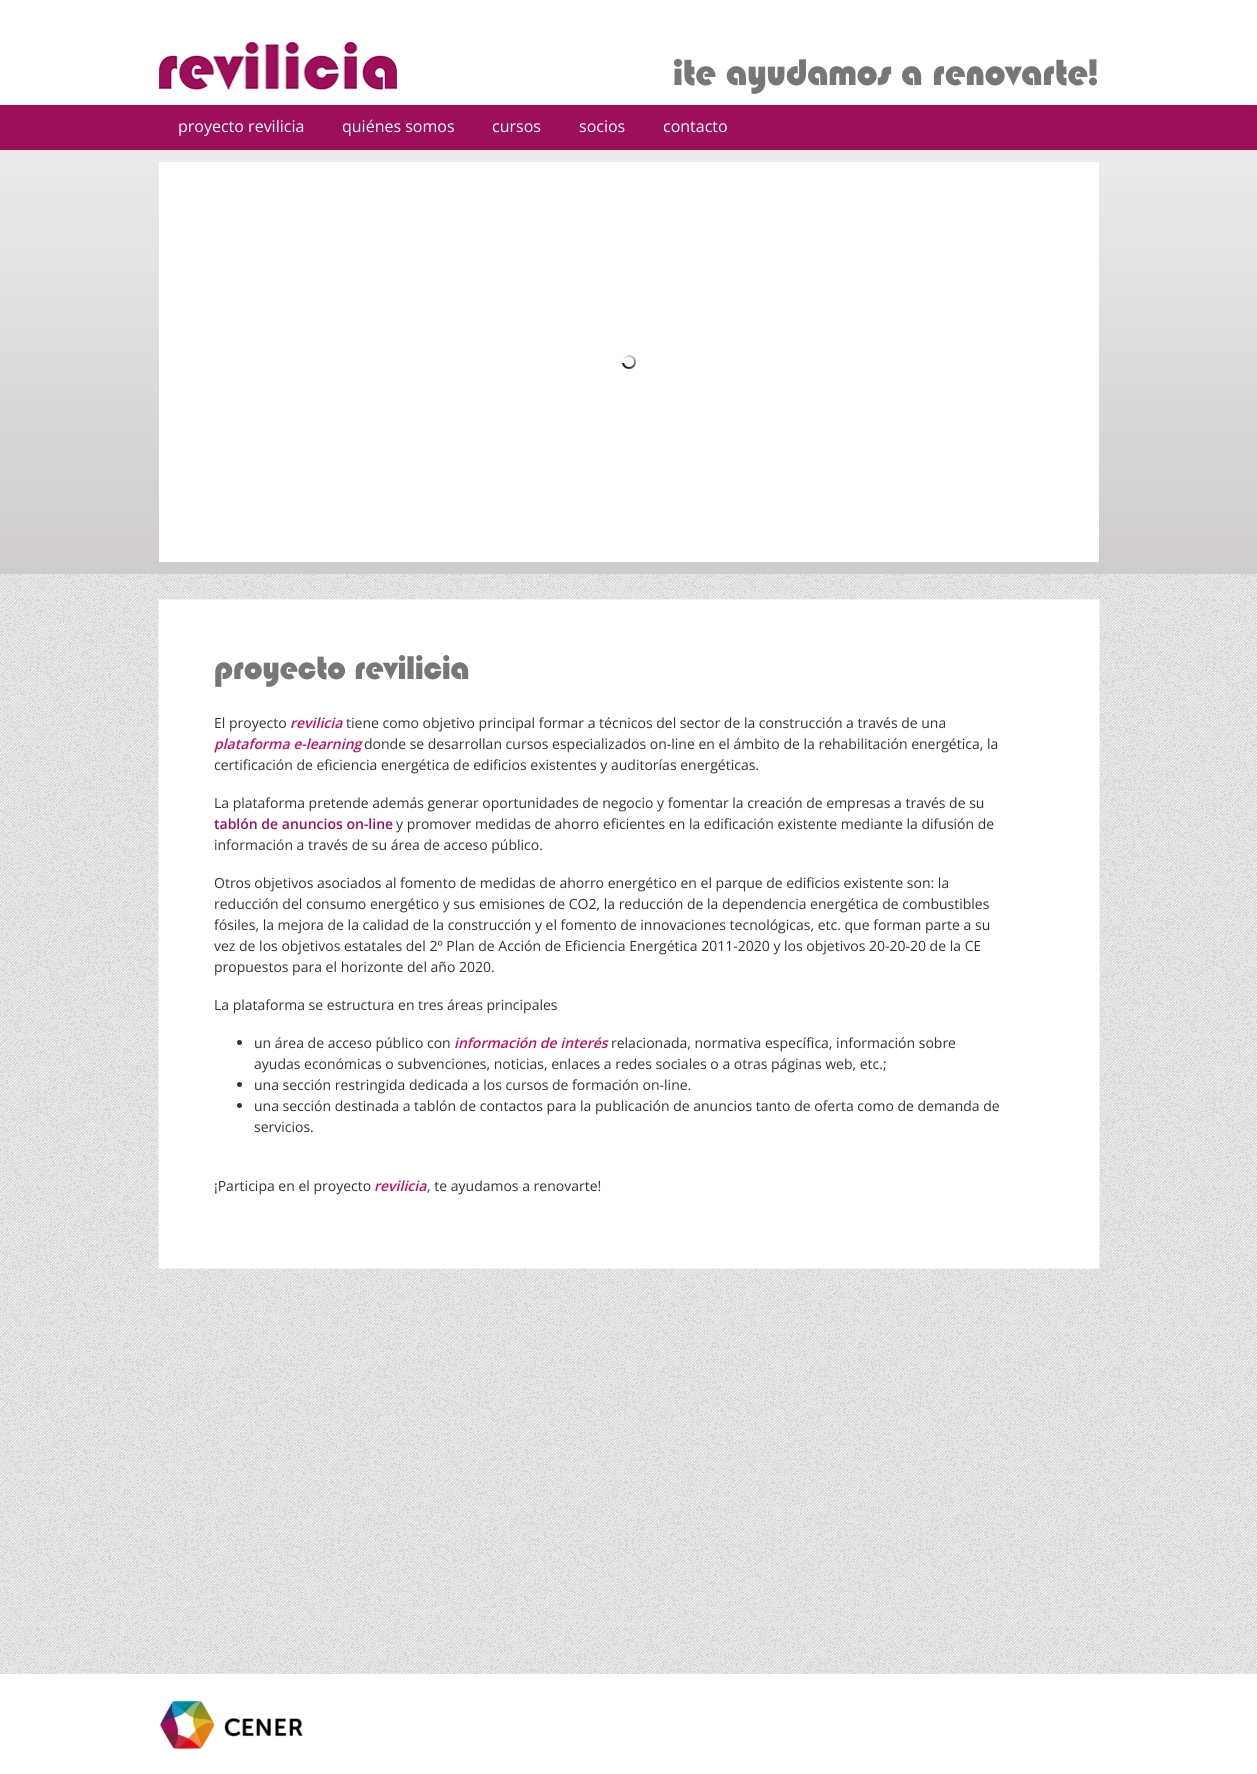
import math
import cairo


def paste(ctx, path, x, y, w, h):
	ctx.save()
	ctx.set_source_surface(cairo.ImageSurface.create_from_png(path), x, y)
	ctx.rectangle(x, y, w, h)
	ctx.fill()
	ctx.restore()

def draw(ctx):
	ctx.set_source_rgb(1, 1, 1)
	ctx.paint()
	paste(ctx, 'media/1.png', 0, 574, 1257, 1100)
	paste(ctx, 'media/2.png', 159, 42, 238, 48)
	ctx.select_font_face('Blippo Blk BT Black')
	ctx.set_font_size(36)
	ctx.set_source_rgb(0.467, 0.467, 0.467)
	ctx.move_to(673, 85)
	ctx.show_text('¡te ayudamos a renovarte!')
	ctx.set_source_rgb(0.616, 0.059, 0.357)
	ctx.rectangle(0, 105, 1257, 45)
	ctx.fill()
	ctx.select_font_face('Open Sans')
	ctx.set_font_size(16)
	ctx.set_source_rgb(1, 1, 1)
	for x, y, s in [
		(178, 132, 'proyecto revilicia'),
		(342, 132, 'quiénes somos'),
		(492, 132, 'cursos'),
		(579, 132, 'socios'),
		(663, 132, 'contacto'),
	]:
		ctx.move_to(x, y)
		ctx.show_text(s)
	gradient = cairo.LinearGradient(629, 150, 629, 574)
	gradient.add_color_stop_rgba(0.01, 0.925, 0.922, 0.922, 1)
	gradient.add_color_stop_rgba(1, 0.808, 0.8, 0.8, 1)
	ctx.set_source(gradient)
	ctx.rectangle(0, 150, 1257, 424)
	ctx.fill()
	ctx.set_source_rgb(1, 1, 1)
	ctx.rectangle(159, 162, 940, 400)
	ctx.fill()
	paste(ctx, 'media/3.png', 622, 355, 14, 14)
	ctx.rectangle(158.5, 599.5, 941, 669)
	ctx.fill_preserve()
	ctx.set_source_rgb(0.945, 0.945, 0.945)
	ctx.set_line_width(1)
	ctx.stroke()
	ctx.select_font_face('Blippo Blk BT Black')
	ctx.set_font_size(32)
	ctx.set_source_rgb(0.467, 0.467, 0.467)
	ctx.move_to(214, 679)
	ctx.show_text('proyecto revilicia')
	ctx.select_font_face('Open Sans')
	ctx.set_font_size(14)
	ctx.set_source_rgb(0.2, 0.2, 0.2)
	ctx.move_to(214, 728)
	ctx.show_text('El proyecto')
	ctx.select_font_face('Open Sans SemiBold', cairo.FONT_SLANT_ITALIC)
	ctx.set_source_rgb(0.776, 0.059, 0.357)
	ctx.move_to(290, 728)
	ctx.show_text('revilicia')
	ctx.select_font_face('Open Sans')
	ctx.set_source_rgb(0.2, 0.2, 0.2)
	ctx.move_to(346, 728)
	ctx.show_text('tiene como objetivo principal formar a técnicos del sector de la construcción a través de una')
	ctx.select_font_face('Open Sans SemiBold', cairo.FONT_SLANT_ITALIC)
	ctx.set_source_rgb(0.776, 0.059, 0.357)
	ctx.move_to(214, 749)
	ctx.show_text('plataforma e-learning')
	ctx.select_font_face('Open Sans')
	ctx.set_source_rgb(0.2, 0.2, 0.2)
	for x, y, s in [
		(364, 749, 'donde se desarrollan cursos especializados on-line en el ámbito de la rehabilitación energética, la'),
		(214, 770, 'certificación de eficiencia energética de edificios existentes y auditorías energéticas.'),
		(214, 808, 'La plataforma pretende además generar oportunidades de negocio y fomentar la creación de empresas a través de su'),
	]:
		ctx.move_to(x, y)
		ctx.show_text(s)
	ctx.select_font_face('Open Sans SemiBold')
	ctx.set_source_rgb(0.62, 0.059, 0.357)
	ctx.move_to(214, 829)
	ctx.show_text('tablón de anuncios on-line')
	ctx.select_font_face('Open Sans')
	ctx.set_source_rgb(0.2, 0.2, 0.2)
	for x, y, s in [
		(396, 829, 'y promover medidas de ahorro eficientes en la edificación existente mediante la difusión de'),
		(214, 850, 'información a través de su área de acceso público.'),
		(214, 888, 'Otros objetivos asociados al fomento de medidas de ahorro energético en el parque de edificios existente son: la'),
		(214, 909, 'reducción del consumo energético y sus emisiones de CO2, la reducción de la dependencia energética de combustibles'),
		(214, 930, 'fósiles, la mejora de la calidad de la construcción y el fomento de innovaciones tecnológicas, etc. que forman parte a su'),
		(214, 951, 'vez de los objetivos estatales del 2º Plan de Acción de Eficiencia Energética 2011-2020 y los objetivos 20-20-20 de la CE'),
		(214, 972, 'propuestos para el horizonte del año 2020.'),
		(214, 1010, 'La plataforma se estructura en tres áreas principales'),
	]:
		ctx.move_to(x, y)
		ctx.show_text(s)
	ctx.new_path()
	ctx.arc(239.5, 1042.5, 2.5, 0, 2 * math.pi)
	ctx.fill()
	ctx.move_to(254, 1048)
	ctx.show_text('un área de acceso público con')
	ctx.select_font_face('Open Sans SemiBold', cairo.FONT_SLANT_ITALIC)
	ctx.set_source_rgb(0.776, 0.059, 0.357)
	ctx.move_to(454, 1048)
	ctx.show_text('información de interés')
	ctx.select_font_face('Open Sans')
	ctx.set_source_rgb(0.2, 0.2, 0.2)
	ctx.move_to(611, 1048)
	ctx.show_text('relacionada, normativa específica, información sobre')
	ctx.move_to(254, 1069)
	ctx.show_text('ayudas económicas o subvenciones, noticias, enlaces a redes sociales o a otras páginas web, etc.;')
	ctx.new_path()
	ctx.arc(239.5, 1084.5, 2.5, 0, 2 * math.pi)
	ctx.fill()
	ctx.move_to(254, 1090)
	ctx.show_text('una sección restringida dedicada a los cursos de formación on-line.')
	ctx.new_path()
	ctx.arc(239.5, 1105.5, 2.5, 0, 2 * math.pi)
	ctx.fill()
	for x, y, s in [
		(254, 1111, 'una sección destinada a tablón de contactos para la publicación de anuncios tanto de oferta como de demanda de'),
		(254, 1132, 'servicios.'),
		(214, 1191, '¡Participa en el proyecto'),
	]:
		ctx.move_to(x, y)
		ctx.show_text(s)
	ctx.select_font_face('Open Sans SemiBold', cairo.FONT_SLANT_ITALIC)
	ctx.set_source_rgb(0.776, 0.059, 0.357)
	ctx.move_to(374, 1191)
	ctx.show_text('revilicia')
	ctx.select_font_face('Open Sans')
	ctx.set_source_rgb(0.2, 0.2, 0.2)
	ctx.move_to(427, 1191)
	ctx.show_text(', te ayudamos a renovarte!')
	paste(ctx, 'media/4.png', 159, 1700, 144, 50)


surface = cairo.ImageSurface(cairo.FORMAT_RGB24, 1257, 1774)
ctx = cairo.Context(surface)
options = cairo.FontOptions()
options.set_hint_metrics(cairo.HINT_METRICS_OFF)
options.set_hint_style(cairo.HINT_STYLE_NONE)
ctx.set_font_options(options)
ctx.set_miter_limit(4)
draw(ctx)
surface.write_to_png('image.png')
